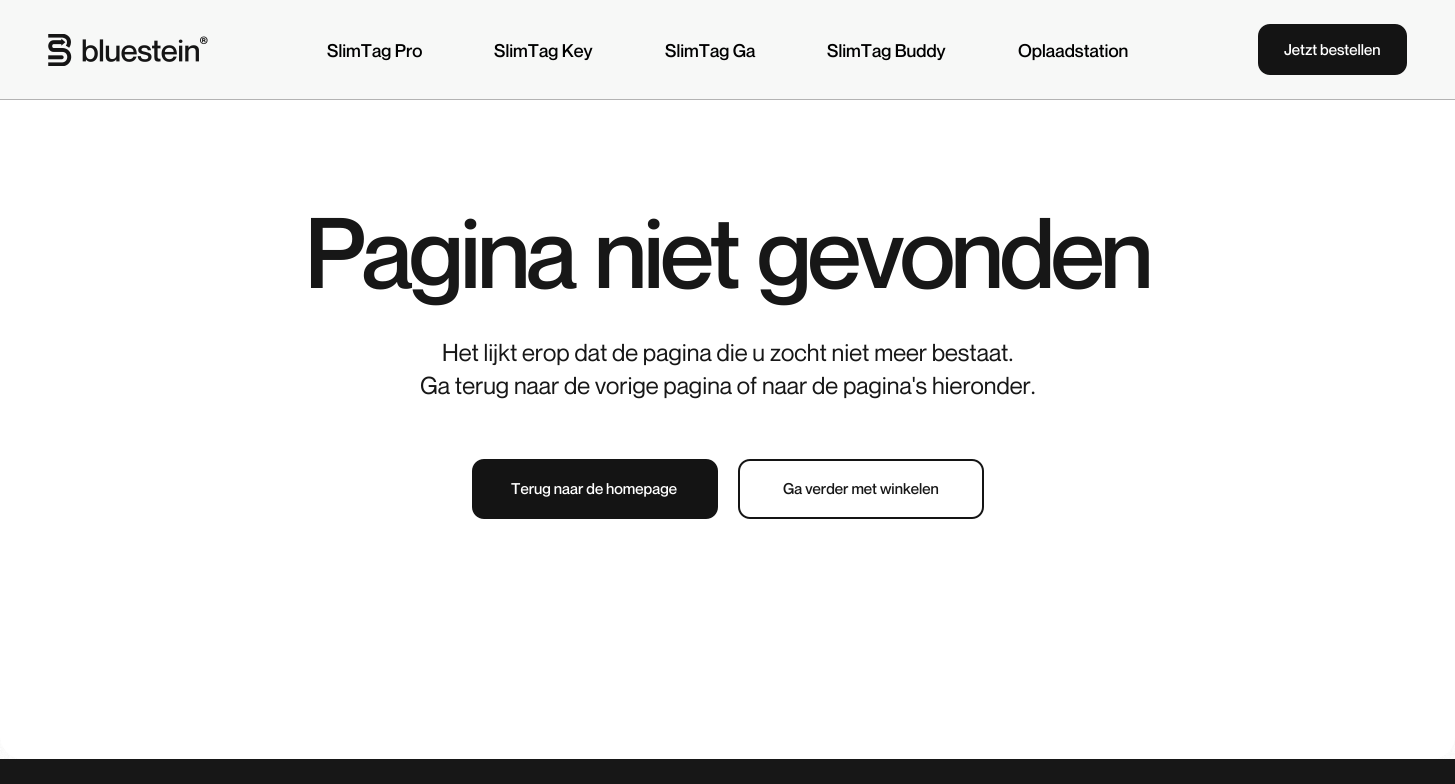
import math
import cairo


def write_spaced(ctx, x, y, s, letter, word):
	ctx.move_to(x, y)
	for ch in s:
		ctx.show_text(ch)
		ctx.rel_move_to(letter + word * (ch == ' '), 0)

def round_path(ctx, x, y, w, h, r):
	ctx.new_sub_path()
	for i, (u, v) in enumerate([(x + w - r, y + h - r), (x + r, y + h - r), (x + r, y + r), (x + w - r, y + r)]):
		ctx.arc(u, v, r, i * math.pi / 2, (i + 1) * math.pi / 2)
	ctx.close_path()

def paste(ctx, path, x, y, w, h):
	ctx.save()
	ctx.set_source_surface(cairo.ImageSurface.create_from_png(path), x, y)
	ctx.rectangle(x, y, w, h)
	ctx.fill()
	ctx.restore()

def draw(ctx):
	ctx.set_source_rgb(1, 1, 1)
	ctx.paint()
	ctx.set_source_rgb(0.965, 0.969, 0.965)
	ctx.rectangle(0, 0, 1455, 99)
	ctx.fill()
	ctx.set_source_rgb(0.702, 0.702, 0.702)
	ctx.rectangle(0, 99, 1455, 1)
	ctx.fill()
	paste(ctx, 'media/1.png', 48, 34, 160, 32)
	ctx.select_font_face('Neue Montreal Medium')
	ctx.set_font_size(18)
	ctx.set_source_rgb(0, 0, 0)
	for x, y, s in [
		(327, 57, 'SlimTag Pro'),
		(494, 57, 'SlimTag Key'),
		(665, 57, 'SlimTag Ga'),
		(827, 57, 'SlimTag Buddy'),
		(1018, 57, 'Oplaadstation'),
	]:
		ctx.move_to(x, y)
		ctx.show_text(s)
	ctx.set_source_rgb(0.082, 0.082, 0.082)
	round_path(ctx, 1259, 25, 147, 49, 11)
	ctx.fill_preserve()
	ctx.stroke()
	ctx.set_font_size(15.25)
	ctx.set_source_rgb(1, 1, 1)
	ctx.move_to(1284, 55)
	ctx.show_text('Jetzt bestellen')
	ctx.set_font_size(98)
	ctx.set_source_rgb(0.09, 0.09, 0.09)
	for x, y, s in [
		(305, 288, 'Pagina'),
		(594, 288, 'niet'),
		(757, 288, 'gevonden'),
	]:
		write_spaced(ctx, x, y, s, -4, 0)
	ctx.select_font_face('Neue Montreal')
	ctx.set_font_size(24)
	ctx.move_to(442, 361)
	ctx.show_text('Het lijkt erop dat de pagina die u zocht niet meer bestaat.')
	ctx.move_to(420, 394)
	ctx.show_text('Ga terug naar de vorige pagina of naar de pagina\'s hieronder.')
	ctx.set_source_rgb(0.082, 0.082, 0.082)
	round_path(ctx, 473, 460, 244, 58, 11)
	ctx.fill_preserve()
	ctx.stroke()
	ctx.select_font_face('Neue Montreal Medium')
	ctx.set_font_size(15.25)
	ctx.set_source_rgb(1, 1, 1)
	ctx.move_to(511, 494)
	ctx.show_text('Terug naar de homepage')
	round_path(ctx, 739, 460, 244, 58, 11)
	ctx.set_source_rgb(0.082, 0.082, 0.082)
	ctx.stroke()
	ctx.set_source_rgb(0.09, 0.09, 0.09)
	ctx.move_to(783, 494)
	ctx.show_text('Ga verder met winkelen')
	paste(ctx, 'media/2.png', 0, 736, 1455, 23)
	ctx.set_source_rgb(1, 1, 1)
	ctx.new_path()
	ctx.move_to(0, 639)
	ctx.line_to(1455, 639)
	ctx.line_to(1455, 736)
	ctx.curve_to(1455, 748.5, 1444.5, 759, 1432, 759)
	ctx.line_to(23, 759)
	ctx.curve_to(10.5, 759, 0, 748.5, 0, 736)
	ctx.close_path()
	ctx.fill()
	ctx.set_source_rgb(0.09, 0.09, 0.09)
	ctx.rectangle(0, 759, 1455, 25)
	ctx.fill()


surface = cairo.ImageSurface(cairo.FORMAT_RGB24, 1455, 784)
ctx = cairo.Context(surface)
options = cairo.FontOptions()
options.set_hint_metrics(cairo.HINT_METRICS_OFF)
options.set_hint_style(cairo.HINT_STYLE_NONE)
ctx.set_font_options(options)
ctx.set_miter_limit(4)
draw(ctx)
surface.write_to_png('image.png')
